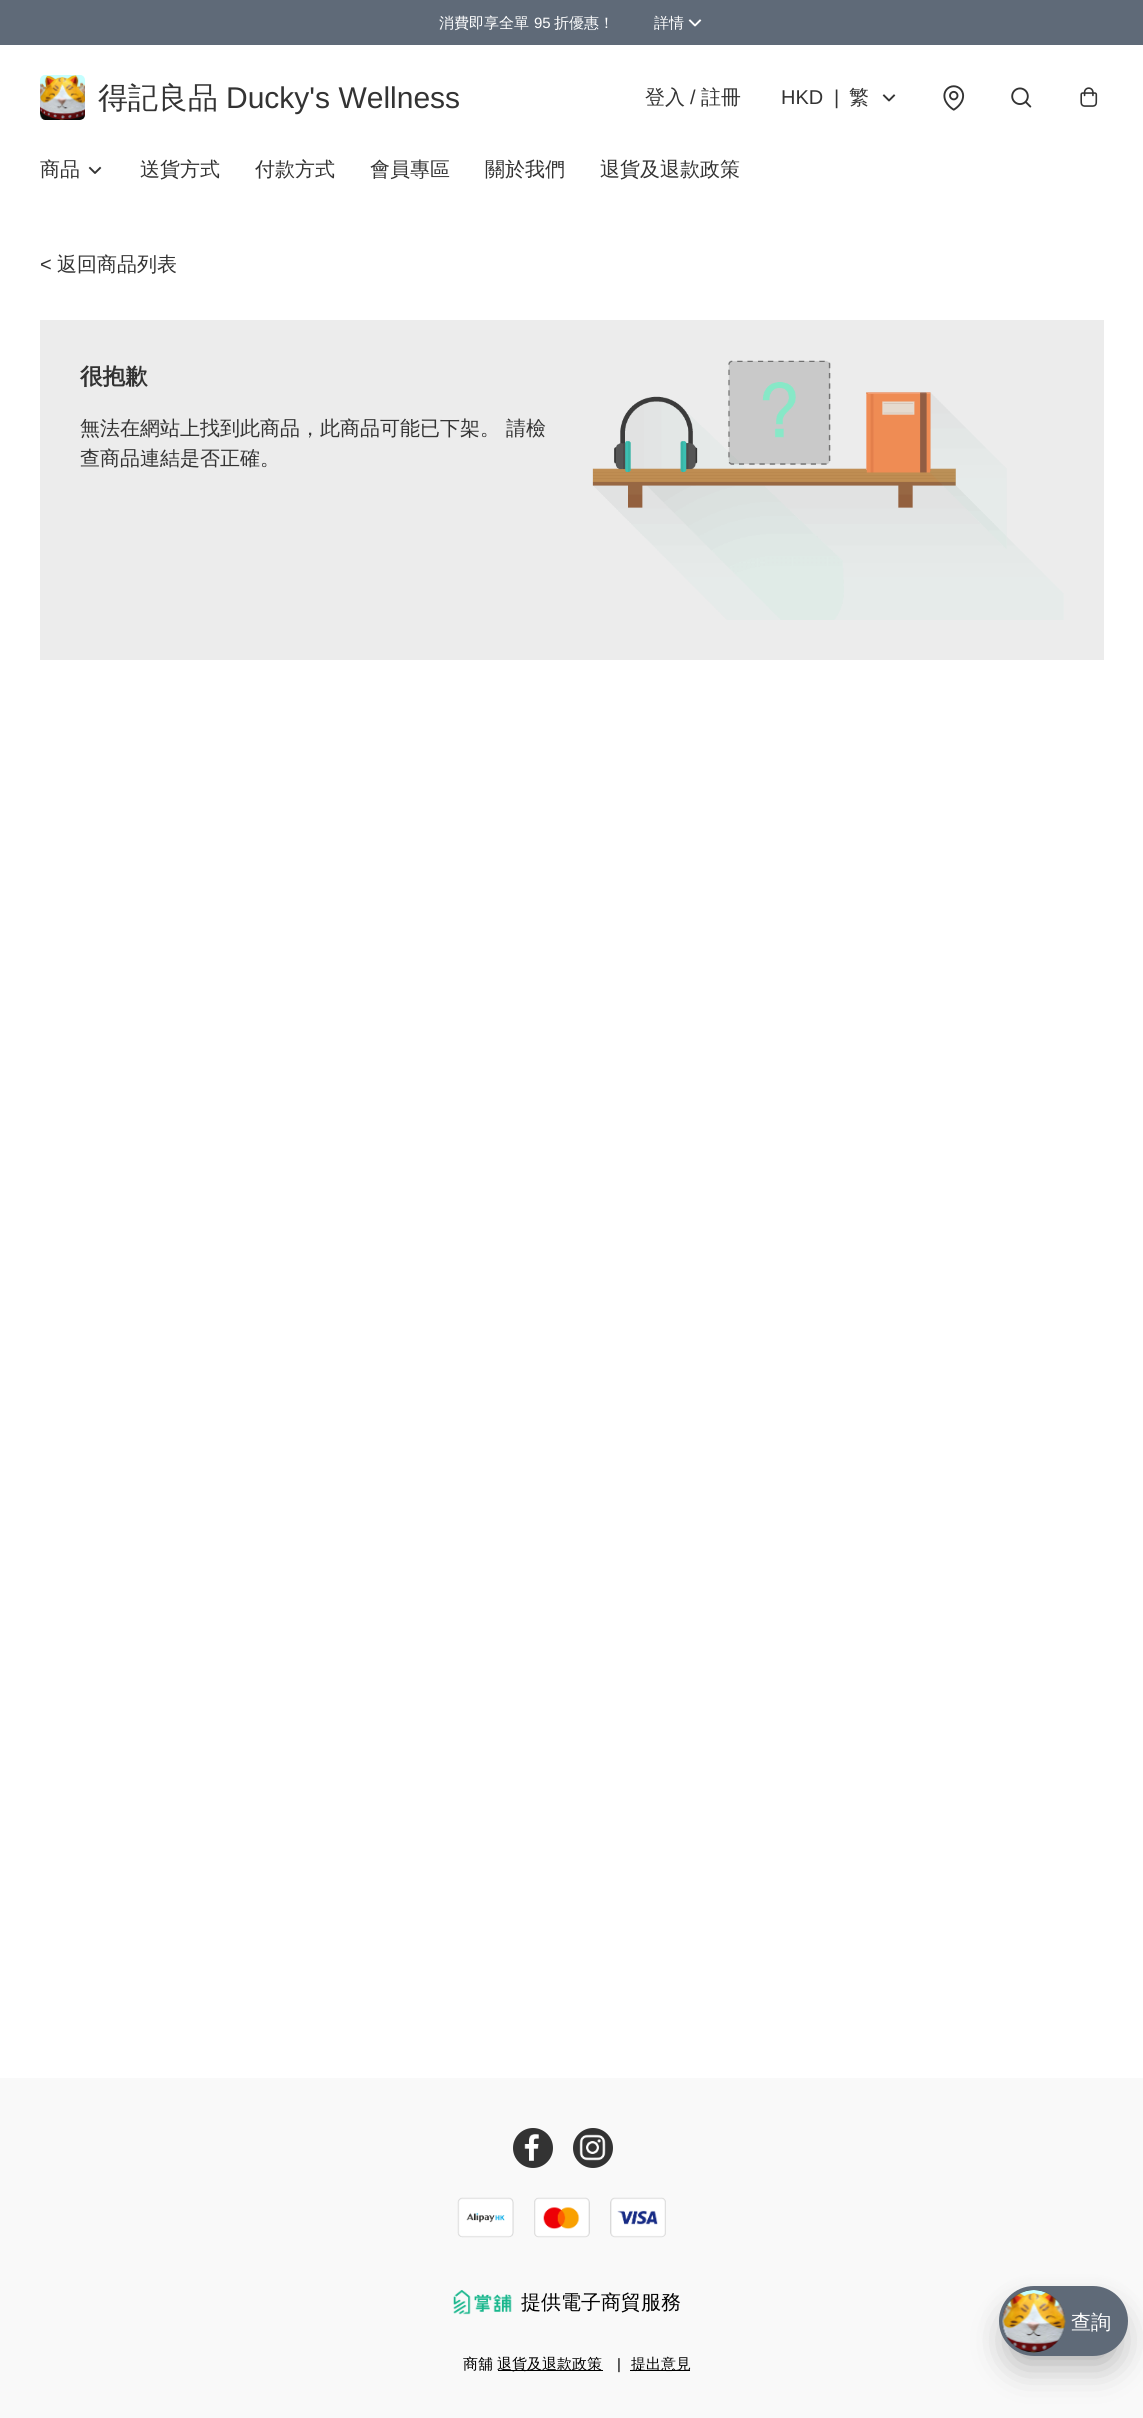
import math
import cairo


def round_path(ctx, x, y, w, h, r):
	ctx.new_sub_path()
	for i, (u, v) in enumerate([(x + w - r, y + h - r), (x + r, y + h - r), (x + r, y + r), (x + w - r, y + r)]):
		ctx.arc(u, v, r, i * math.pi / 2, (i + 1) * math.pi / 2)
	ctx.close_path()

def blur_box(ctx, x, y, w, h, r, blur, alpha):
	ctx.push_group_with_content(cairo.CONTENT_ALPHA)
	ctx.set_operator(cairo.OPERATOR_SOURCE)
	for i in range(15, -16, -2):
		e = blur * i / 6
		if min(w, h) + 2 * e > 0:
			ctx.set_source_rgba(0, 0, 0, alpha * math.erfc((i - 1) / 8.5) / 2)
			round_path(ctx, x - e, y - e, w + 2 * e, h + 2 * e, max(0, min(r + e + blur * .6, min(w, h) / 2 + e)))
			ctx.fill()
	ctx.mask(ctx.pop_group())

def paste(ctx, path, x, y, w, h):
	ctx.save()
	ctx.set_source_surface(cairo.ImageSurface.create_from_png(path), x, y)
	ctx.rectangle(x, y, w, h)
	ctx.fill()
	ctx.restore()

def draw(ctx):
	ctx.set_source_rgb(1, 1, 1)
	ctx.paint()
	ctx.set_source_rgb(0.373, 0.416, 0.471)
	ctx.rectangle(0, 0, 1143, 45)
	ctx.fill()
	ctx.select_font_face('WenQuanYi Zen Hei Medium')
	ctx.set_font_size(15)
	ctx.set_source_rgb(1, 1, 1)
	ctx.move_to(439, 28)
	ctx.show_text('消費即享全單')
	ctx.select_font_face('Liberation Sans')
	ctx.move_to(534, 28)
	ctx.show_text('95')
	ctx.select_font_face('WenQuanYi Zen Hei Medium')
	ctx.move_to(554, 28)
	ctx.show_text('折優惠！')
	ctx.move_to(654, 28)
	ctx.show_text('詳情')
	ctx.new_path()
	ctx.move_to(690, 20.5)
	ctx.line_to(695, 25.5)
	ctx.line_to(700, 20.5)
	ctx.set_line_width(1.9)
	ctx.set_line_cap(cairo.LINE_CAP_SQUARE)
	ctx.set_line_join(cairo.LINE_JOIN_ROUND)
	ctx.stroke()
	paste(ctx, 'media/1.png', 40, 75, 45, 45)
	ctx.set_font_size(30)
	ctx.set_source_rgb(0.2, 0.2, 0.2)
	ctx.move_to(98, 108)
	ctx.show_text('得記良品')
	ctx.select_font_face('Liberation Sans')
	ctx.move_to(226, 108)
	ctx.show_text('Ducky\'s Wellness')
	ctx.select_font_face('WenQuanYi Zen Hei Medium')
	ctx.set_font_size(20)
	ctx.move_to(645, 104)
	ctx.show_text('登入')
	ctx.select_font_face('Liberation Sans')
	ctx.move_to(690, 104)
	ctx.show_text('/')
	ctx.select_font_face('WenQuanYi Zen Hei Medium')
	ctx.move_to(701, 104)
	ctx.show_text('註冊')
	ctx.select_font_face('Liberation Sans')
	ctx.move_to(781, 104)
	ctx.show_text('HKD')
	ctx.move_to(834, 104)
	ctx.show_text('|')
	ctx.select_font_face('WenQuanYi Zen Hei Medium')
	ctx.move_to(849, 104)
	ctx.show_text('繁')
	ctx.new_path()
	ctx.move_to(884, 95.5)
	ctx.line_to(889, 100.5)
	ctx.line_to(894, 95.5)
	ctx.stroke()
	paste(ctx, 'media/2.png', 943, 85, 22, 26)
	paste(ctx, 'media/3.png', 1011, 87, 21, 21)
	paste(ctx, 'media/4.png', 1080, 87, 18, 20)
	ctx.move_to(40, 176)
	ctx.show_text('商品')
	ctx.new_path()
	ctx.move_to(90, 168)
	ctx.line_to(95, 173)
	ctx.line_to(100, 168)
	ctx.stroke()
	for x, y, s in [
		(140, 176, '送貨方式'),
		(255, 176, '付款方式'),
		(370, 176, '會員專區'),
		(485, 176, '關於我們'),
		(600, 176, '退貨及退款政策'),
	]:
		ctx.move_to(x, y)
		ctx.show_text(s)
	ctx.select_font_face('Liberation Sans')
	ctx.move_to(40, 271)
	ctx.show_text('<')
	ctx.select_font_face('WenQuanYi Zen Hei Medium')
	ctx.move_to(57, 271)
	ctx.show_text('返回商品列表')
	ctx.set_source_rgb(0.922, 0.922, 0.922)
	ctx.rectangle(40, 320, 1064, 340)
	ctx.fill()
	ctx.select_font_face('WenQuanYi Zen Hei', cairo.FONT_SLANT_NORMAL, cairo.FONT_WEIGHT_BOLD)
	ctx.set_font_size(22.5)
	ctx.set_source_rgb(0.2, 0.2, 0.2)
	ctx.move_to(80, 384)
	ctx.show_text('很抱歉')
	ctx.select_font_face('WenQuanYi Zen Hei Medium')
	ctx.set_font_size(20)
	ctx.move_to(80, 435)
	ctx.show_text('無法在網站上找到此商品，此商品可能已下架。 請檢')
	ctx.move_to(80, 465)
	ctx.show_text('查商品連結是否正確。')
	paste(ctx, 'media/5.png', 592, 360, 472, 260)
	ctx.set_source_rgb(0.976, 0.976, 0.976)
	ctx.rectangle(0, 2078, 1143, 340)
	ctx.fill()
	ctx.set_source_rgb(0.2, 0.2, 0.2)
	ctx.arc(533, 2148, 20, 0, 2 * math.pi)
	ctx.fill()
	paste(ctx, 'media/6.png', 524, 2134, 15, 27)
	ctx.arc(593, 2148, 20, 0, 2 * math.pi)
	ctx.fill()
	paste(ctx, 'media/7.png', 579, 2134, 27, 27)
	paste(ctx, 'media/8.png', 457, 2197, 57, 41)
	paste(ctx, 'media/9.png', 534, 2197, 56, 41)
	paste(ctx, 'media/10.png', 610, 2197, 56, 41)
	paste(ctx, 'media/11.png', 453, 2290, 59, 25)
	ctx.set_source_rgb(0, 0, 0)
	ctx.move_to(521, 2309)
	ctx.show_text('提供電子商貿服務')
	ctx.set_font_size(15)
	ctx.move_to(463, 2369)
	ctx.show_text('商舖')
	ctx.rectangle(498, 2370, 105, 1)
	ctx.fill()
	ctx.move_to(497, 2369)
	ctx.show_text('退貨及退款政策')
	ctx.select_font_face('Liberation Sans')
	ctx.move_to(617, 2369)
	ctx.show_text('|')
	ctx.rectangle(630, 2370, 60, 1)
	ctx.fill()
	ctx.select_font_face('WenQuanYi Zen Hei Medium')
	ctx.move_to(631, 2369)
	ctx.show_text('提出意見')
	ctx.set_source_rgb(0, 0, 0)
	blur_box(ctx, 1011, 2318, 104, 45, 22.5, 19, 0.3)
	blur_box(ctx, 999, 2293, 129, 70, 35, 12.5, 0.05)
	ctx.set_source_rgb(0.373, 0.416, 0.471)
	round_path(ctx, 999, 2286, 129, 70, 35)
	ctx.fill()
	paste(ctx, 'media/12.png', 1002, 2290, 64, 63)
	ctx.set_font_size(20)
	ctx.set_source_rgb(1, 1, 1)
	ctx.move_to(1071, 2329)
	ctx.show_text('查詢')


surface = cairo.ImageSurface(cairo.FORMAT_RGB24, 1143, 2418)
ctx = cairo.Context(surface)
options = cairo.FontOptions()
options.set_hint_metrics(cairo.HINT_METRICS_OFF)
options.set_hint_style(cairo.HINT_STYLE_NONE)
ctx.set_font_options(options)
ctx.set_miter_limit(4)
draw(ctx)
surface.write_to_png('image.png')
